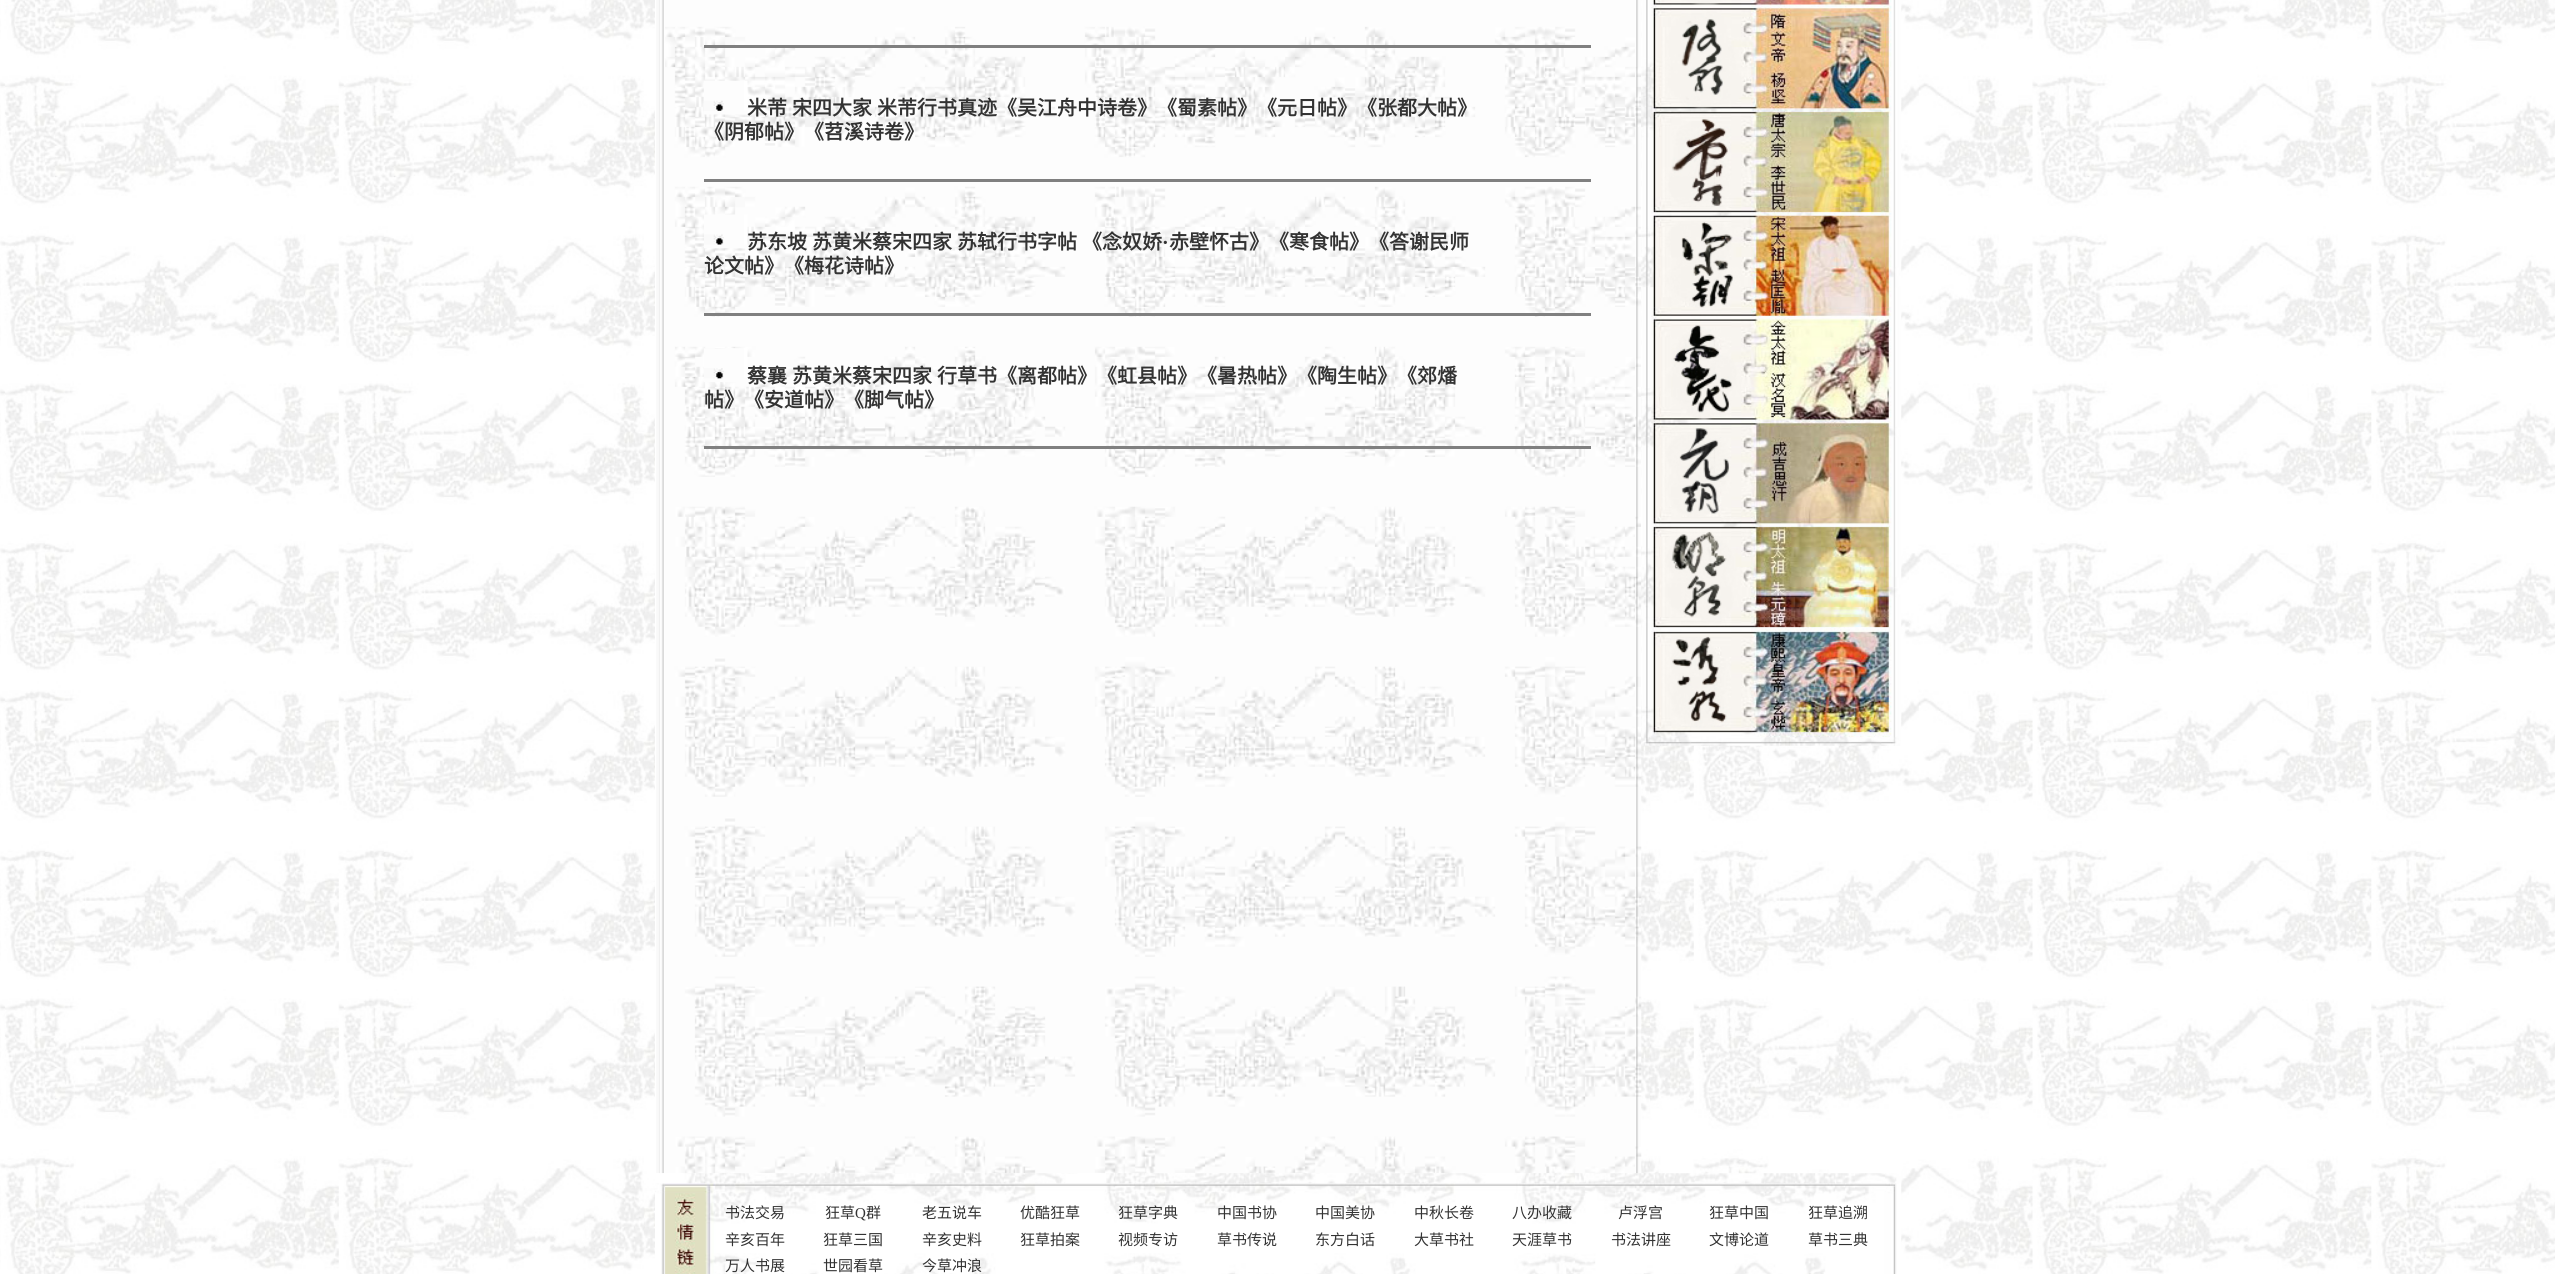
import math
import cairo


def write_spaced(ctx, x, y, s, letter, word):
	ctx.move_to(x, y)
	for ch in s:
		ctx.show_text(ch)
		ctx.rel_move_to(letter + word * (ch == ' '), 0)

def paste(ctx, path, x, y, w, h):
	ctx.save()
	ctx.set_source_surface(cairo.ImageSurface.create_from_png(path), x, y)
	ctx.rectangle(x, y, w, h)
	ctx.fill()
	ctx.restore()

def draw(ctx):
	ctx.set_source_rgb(1, 1, 1)
	ctx.paint()
	paste(ctx, 'media/1.png', 0, 0, 2555, 1274)
	paste(ctx, 'media/2.png', 655, 0, 987, 1174)
	ctx.set_source_rgb(0.502, 0.502, 0.502)
	ctx.rectangle(704, 45, 887, 3)
	ctx.fill()
	paste(ctx, 'media/3.png', 703, 80, 45, 35)
	ctx.select_font_face('Noto Sans CJK SC', cairo.FONT_SLANT_NORMAL, cairo.FONT_WEIGHT_BOLD)
	ctx.set_font_size(20)
	ctx.set_source_rgb(0.2, 0.2, 0.2)
	write_spaced(ctx, 747, 115, '米芾 宋四大家 米芾行书真迹《吴江舟中诗卷》《蜀素帖》《元日帖》《张都大帖》', 0, 0.5)
	ctx.move_to(704, 139)
	ctx.show_text('《阴郁帖》《苕溪诗卷》')
	ctx.set_source_rgb(0.502, 0.502, 0.502)
	ctx.rectangle(704, 179, 887, 3)
	ctx.fill()
	paste(ctx, 'media/4.png', 704, 214, 44, 35)
	ctx.set_source_rgb(0.2, 0.2, 0.2)
	write_spaced(ctx, 747, 249, '苏东坡 苏黄米蔡宋四家 苏轼行书字帖 《念奴娇', 0, 0.5)
	ctx.select_font_face('Liberation Serif', cairo.FONT_SLANT_NORMAL, cairo.FONT_WEIGHT_BOLD)
	ctx.move_to(1162, 249)
	ctx.show_text('·')
	ctx.select_font_face('Noto Sans CJK SC', cairo.FONT_SLANT_NORMAL, cairo.FONT_WEIGHT_BOLD)
	ctx.move_to(1169, 249)
	ctx.show_text('赤壁怀古》《寒食帖》《答谢民师')
	ctx.move_to(704, 273)
	ctx.show_text('论文帖》《梅花诗帖》')
	ctx.set_source_rgb(0.502, 0.502, 0.502)
	ctx.rectangle(704, 313, 887, 3)
	ctx.fill()
	paste(ctx, 'media/5.png', 703, 348, 45, 34)
	ctx.set_source_rgb(0.2, 0.2, 0.2)
	write_spaced(ctx, 747, 383, '蔡襄 苏黄米蔡宋四家', 0, 0.5)
	ctx.move_to(937, 383)
	ctx.show_text('行草书《离都帖》《虹县帖》《暑热帖》《陶生帖》《郊燔')
	ctx.move_to(704, 407)
	ctx.show_text('帖》《安道帖》《脚气帖》')
	ctx.set_source_rgb(0.502, 0.502, 0.502)
	ctx.rectangle(704, 446, 887, 3)
	ctx.fill()
	paste(ctx, 'media/6.png', 1641, 0, 261, 746)
	paste(ctx, 'media/7.png', 655, 1173, 1247, 101)
	ctx.select_font_face('Noto Sans CJK SC')
	ctx.set_font_size(15)
	ctx.set_source_rgb(0.2, 0.2, 0.2)
	ctx.move_to(725, 1218)
	ctx.show_text('书法交易')
	ctx.move_to(825, 1218)
	ctx.show_text('狂草')
	ctx.select_font_face('Liberation Serif')
	ctx.move_to(855, 1218)
	ctx.show_text('Q')
	ctx.select_font_face('Noto Sans CJK SC')
	for x, y, s in [
		(866, 1218, '群'),
		(922, 1218, '老五说车'),
		(1020, 1218, '优酷狂草'),
		(1118, 1218, '狂草字典'),
		(1217, 1218, '中国书协'),
		(1315, 1218, '中国美协'),
		(1414, 1218, '中秋长卷'),
		(1512, 1218, '八办收藏'),
		(1618, 1218, '卢浮宫'),
		(1709, 1218, '狂草中国'),
		(1808, 1218, '狂草追溯'),
		(725, 1245, '辛亥百年'),
		(823, 1245, '狂草三国'),
		(922, 1245, '辛亥史料'),
		(1020, 1245, '狂草拍案'),
		(1118, 1245, '视频专访'),
		(1217, 1245, '草书传说'),
		(1315, 1245, '东方白话'),
		(1414, 1245, '大草书社'),
		(1512, 1245, '天涯草书'),
		(1611, 1245, '书法讲座'),
		(1709, 1245, '文博论道'),
		(1808, 1245, '草书三典'),
		(725, 1271, '万人书展'),
		(823, 1271, '世园看草'),
		(922, 1271, '今草冲浪'),
	]:
		ctx.move_to(x, y)
		ctx.show_text(s)


surface = cairo.ImageSurface(cairo.FORMAT_RGB24, 2555, 1274)
ctx = cairo.Context(surface)
options = cairo.FontOptions()
options.set_hint_metrics(cairo.HINT_METRICS_OFF)
options.set_hint_style(cairo.HINT_STYLE_NONE)
ctx.set_font_options(options)
ctx.set_miter_limit(4)
draw(ctx)
surface.write_to_png('image.png')
